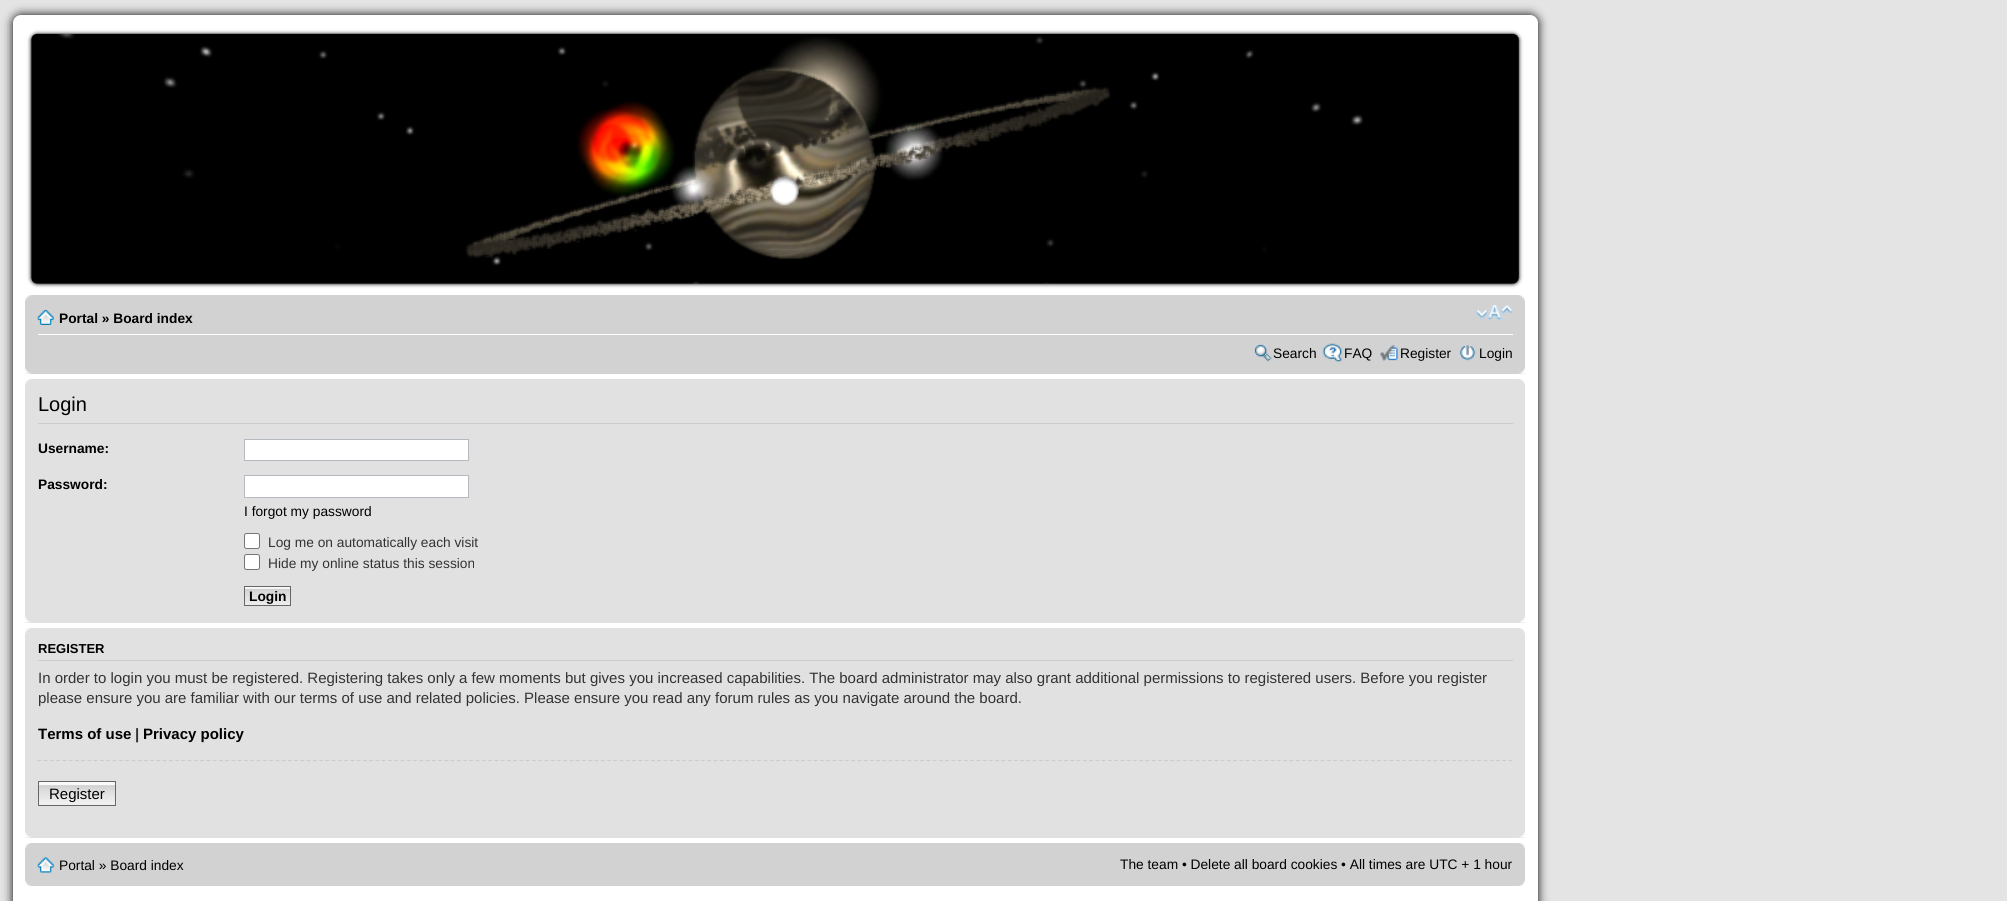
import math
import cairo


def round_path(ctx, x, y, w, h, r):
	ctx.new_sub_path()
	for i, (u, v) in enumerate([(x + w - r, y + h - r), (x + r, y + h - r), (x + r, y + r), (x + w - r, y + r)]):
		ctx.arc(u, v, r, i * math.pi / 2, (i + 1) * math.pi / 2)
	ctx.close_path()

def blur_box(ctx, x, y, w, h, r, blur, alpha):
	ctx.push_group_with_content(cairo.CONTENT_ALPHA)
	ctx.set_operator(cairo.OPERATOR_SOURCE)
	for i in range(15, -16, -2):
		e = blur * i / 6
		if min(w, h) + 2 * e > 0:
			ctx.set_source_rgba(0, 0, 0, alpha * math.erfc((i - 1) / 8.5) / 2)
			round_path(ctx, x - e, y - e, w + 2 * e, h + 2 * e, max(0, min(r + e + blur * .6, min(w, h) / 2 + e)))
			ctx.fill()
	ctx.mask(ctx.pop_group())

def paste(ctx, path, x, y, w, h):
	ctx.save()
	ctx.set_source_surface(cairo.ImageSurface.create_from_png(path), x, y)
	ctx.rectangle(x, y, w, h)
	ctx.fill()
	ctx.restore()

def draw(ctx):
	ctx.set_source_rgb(0.894, 0.894, 0.894)
	ctx.paint()
	ctx.set_source_rgb(0, 0, 0)
	blur_box(ctx, 13, 15, 1525, 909, 8, 5, 1)
	ctx.set_source_rgb(1, 1, 1)
	round_path(ctx, 13, 15, 1525, 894, 8)
	ctx.fill()
	ctx.set_source_rgb(0, 0, 0)
	blur_box(ctx, 31, 34, 1488, 250, 6, 2, 1)
	paste(ctx, 'media/1.png', 31, 33, 1488, 251)
	ctx.set_source_rgb(0.824, 0.824, 0.824)
	ctx.rectangle(25, 295, 1500, 79)
	ctx.fill()
	paste(ctx, 'media/2.png', 25, 295, 7, 6)
	paste(ctx, 'media/3.png', 1519, 295, 6, 6)
	ctx.set_source_rgb(1, 1, 1)
	ctx.rectangle(38, 334, 1475, 1)
	ctx.fill()
	paste(ctx, 'media/4.png', 37, 310, 17, 15)
	ctx.select_font_face('Liberation Sans', cairo.FONT_SLANT_NORMAL, cairo.FONT_WEIGHT_BOLD)
	ctx.set_font_size(13.75)
	ctx.set_source_rgb(0, 0, 0)
	ctx.move_to(59, 323)
	ctx.show_text('Portal » Board index')
	paste(ctx, 'media/5.png', 1476, 305, 37, 15)
	paste(ctx, 'media/6.png', 1253, 344, 19, 18)
	ctx.select_font_face('Liberation Sans')
	ctx.move_to(1273, 358)
	ctx.show_text('Search')
	paste(ctx, 'media/7.png', 1322, 343, 21, 19)
	ctx.move_to(1344, 358)
	ctx.show_text('FAQ')
	paste(ctx, 'media/8.png', 1380, 345, 18, 17)
	ctx.move_to(1400, 358)
	ctx.show_text('Register')
	paste(ctx, 'media/9.png', 1459, 345, 17, 16)
	ctx.move_to(1479, 358)
	ctx.show_text('Login')
	paste(ctx, 'media/10.png', 25, 367, 6, 7)
	paste(ctx, 'media/11.png', 1519, 367, 6, 7)
	ctx.set_source_rgb(0.882, 0.882, 0.882)
	ctx.rectangle(25, 379, 1500, 244)
	ctx.fill()
	paste(ctx, 'media/12.png', 25, 379, 6, 6)
	paste(ctx, 'media/13.png', 1519, 379, 6, 6)
	ctx.set_source_rgb(0.8, 0.8, 0.8)
	ctx.rectangle(38, 423, 1475, 1)
	ctx.fill()
	ctx.set_font_size(20)
	ctx.set_source_rgb(0, 0, 0)
	ctx.move_to(38, 411)
	ctx.show_text('Login')
	ctx.select_font_face('Liberation Sans', cairo.FONT_SLANT_NORMAL, cairo.FONT_WEIGHT_BOLD)
	ctx.set_font_size(13.75)
	ctx.move_to(38, 453)
	ctx.show_text('Username:')
	ctx.set_source_rgb(1, 1, 1)
	ctx.rectangle(244.5, 439.5, 224, 21)
	ctx.fill_preserve()
	ctx.set_source_rgb(0.706, 0.729, 0.753)
	ctx.set_line_width(1)
	ctx.stroke()
	ctx.set_source_rgb(0, 0, 0)
	ctx.move_to(38, 489)
	ctx.show_text('Password:')
	ctx.set_source_rgb(1, 1, 1)
	ctx.rectangle(244.5, 475.5, 224, 22)
	ctx.fill_preserve()
	ctx.set_source_rgb(0.706, 0.729, 0.753)
	ctx.stroke()
	ctx.select_font_face('Liberation Sans')
	ctx.set_source_rgb(0, 0, 0)
	ctx.move_to(244, 516)
	ctx.show_text('I forgot my password')
	ctx.set_source_rgb(1, 1, 1)
	round_path(ctx, 244.5, 533.5, 15, 15, 2)
	ctx.fill_preserve()
	ctx.set_source_rgb(0.463, 0.463, 0.463)
	ctx.stroke()
	ctx.set_source_rgb(0.2, 0.2, 0.2)
	ctx.move_to(268, 547)
	ctx.show_text('Log me on automatically each visit')
	ctx.set_source_rgb(1, 1, 1)
	round_path(ctx, 244.5, 554.5, 15, 15, 2)
	ctx.fill_preserve()
	ctx.set_source_rgb(0.463, 0.463, 0.463)
	ctx.stroke()
	ctx.set_source_rgb(0.2, 0.2, 0.2)
	ctx.move_to(268, 568)
	ctx.show_text('Hide my online status this session')
	ctx.set_source_rgb(0.98, 0.98, 0.98)
	ctx.rectangle(245, 587, 45, 1)
	ctx.fill()
	paste(ctx, 'media/14.png', 243, 588, 49, 18)
	ctx.rectangle(244.5, 586.5, 46, 19)
	ctx.set_source_rgb(0.4, 0.4, 0.4)
	ctx.stroke()
	ctx.select_font_face('Liberation Sans', cairo.FONT_SLANT_NORMAL, cairo.FONT_WEIGHT_BOLD)
	ctx.set_source_rgb(0, 0, 0)
	ctx.move_to(249, 601)
	ctx.show_text('Login')
	paste(ctx, 'media/15.png', 25, 616, 6, 7)
	paste(ctx, 'media/16.png', 1519, 616, 6, 7)
	ctx.set_source_rgb(0.882, 0.882, 0.882)
	ctx.rectangle(25, 628, 1500, 210)
	ctx.fill()
	paste(ctx, 'media/17.png', 25, 628, 6, 6)
	paste(ctx, 'media/18.png', 1519, 628, 6, 6)
	ctx.set_source_rgb(0.8, 0.8, 0.8)
	ctx.rectangle(38, 660, 1475, 1)
	ctx.fill()
	ctx.set_font_size(13)
	ctx.set_source_rgb(0, 0, 0)
	ctx.move_to(38, 653)
	ctx.show_text('REGISTER')
	ctx.select_font_face('Liberation Sans')
	ctx.set_font_size(15)
	ctx.set_source_rgb(0.2, 0.2, 0.2)
	ctx.move_to(38, 683)
	ctx.show_text('In order to login you must be registered. Registering takes only a few moments but gives you increased capabilities. The board administrator may also grant additional permissions to registered users. Before you register')
	ctx.move_to(38, 703)
	ctx.show_text('please ensure you are familiar with our terms of use and related policies. Please ensure you read any forum rules as you navigate around the board.')
	ctx.save()
	ctx.rectangle(38, 634, 1475, 197)
	ctx.clip()
	ctx.select_font_face('Liberation Sans', cairo.FONT_SLANT_NORMAL, cairo.FONT_WEIGHT_BOLD)
	ctx.set_source_rgb(0, 0, 0)
	ctx.move_to(38, 739)
	ctx.show_text('Terms of use')
	ctx.restore()
	ctx.select_font_face('Liberation Sans', cairo.FONT_SLANT_NORMAL, cairo.FONT_WEIGHT_BOLD)
	ctx.move_to(135, 739)
	ctx.show_text('|')
	ctx.set_source_rgb(0, 0, 0)
	ctx.move_to(143, 739)
	ctx.show_text('Privacy policy')
	ctx.new_path()
	ctx.move_to(37.5, 760.5)
	ctx.line_to(1512.5, 760.5)
	ctx.set_source_rgb(0.8, 0.8, 0.8)
	ctx.set_line_width(1.2)
	ctx.set_dash([3.75, 2.51])
	ctx.stroke()
	paste(ctx, 'media/19.png', 37, 784, 80, 22)
	ctx.set_source_rgb(0.98, 0.98, 0.98)
	ctx.rectangle(39, 782, 76, 2)
	ctx.fill()
	ctx.rectangle(38.5, 781.5, 77, 24)
	ctx.set_source_rgb(0.4, 0.4, 0.4)
	ctx.set_line_width(1)
	ctx.set_dash([])
	ctx.stroke()
	ctx.select_font_face('Liberation Sans')
	ctx.set_source_rgb(0, 0, 0)
	ctx.move_to(49, 799)
	ctx.show_text('Register')
	paste(ctx, 'media/15.png', 25, 831, 6, 7)
	paste(ctx, 'media/16.png', 1519, 831, 6, 7)
	ctx.set_source_rgb(0.824, 0.824, 0.824)
	ctx.rectangle(25, 843, 1500, 43)
	ctx.fill()
	paste(ctx, 'media/20.png', 25, 843, 6, 6)
	paste(ctx, 'media/21.png', 1519, 843, 6, 6)
	paste(ctx, 'media/22.png', 37, 857, 17, 16)
	ctx.set_font_size(13.75)
	ctx.set_source_rgb(0, 0, 0)
	ctx.move_to(59, 870)
	ctx.show_text('Portal » Board index')
	ctx.move_to(1120, 869)
	ctx.show_text('The team • Delete all board cookies • All times are UTC + 1 hour')
	paste(ctx, 'media/23.png', 25, 880, 6, 6)
	paste(ctx, 'media/24.png', 1519, 880, 6, 6)


surface = cairo.ImageSurface(cairo.FORMAT_RGB24, 2007, 901)
ctx = cairo.Context(surface)
options = cairo.FontOptions()
options.set_hint_metrics(cairo.HINT_METRICS_OFF)
options.set_hint_style(cairo.HINT_STYLE_NONE)
ctx.set_font_options(options)
ctx.set_miter_limit(4)
draw(ctx)
surface.write_to_png('image.png')
